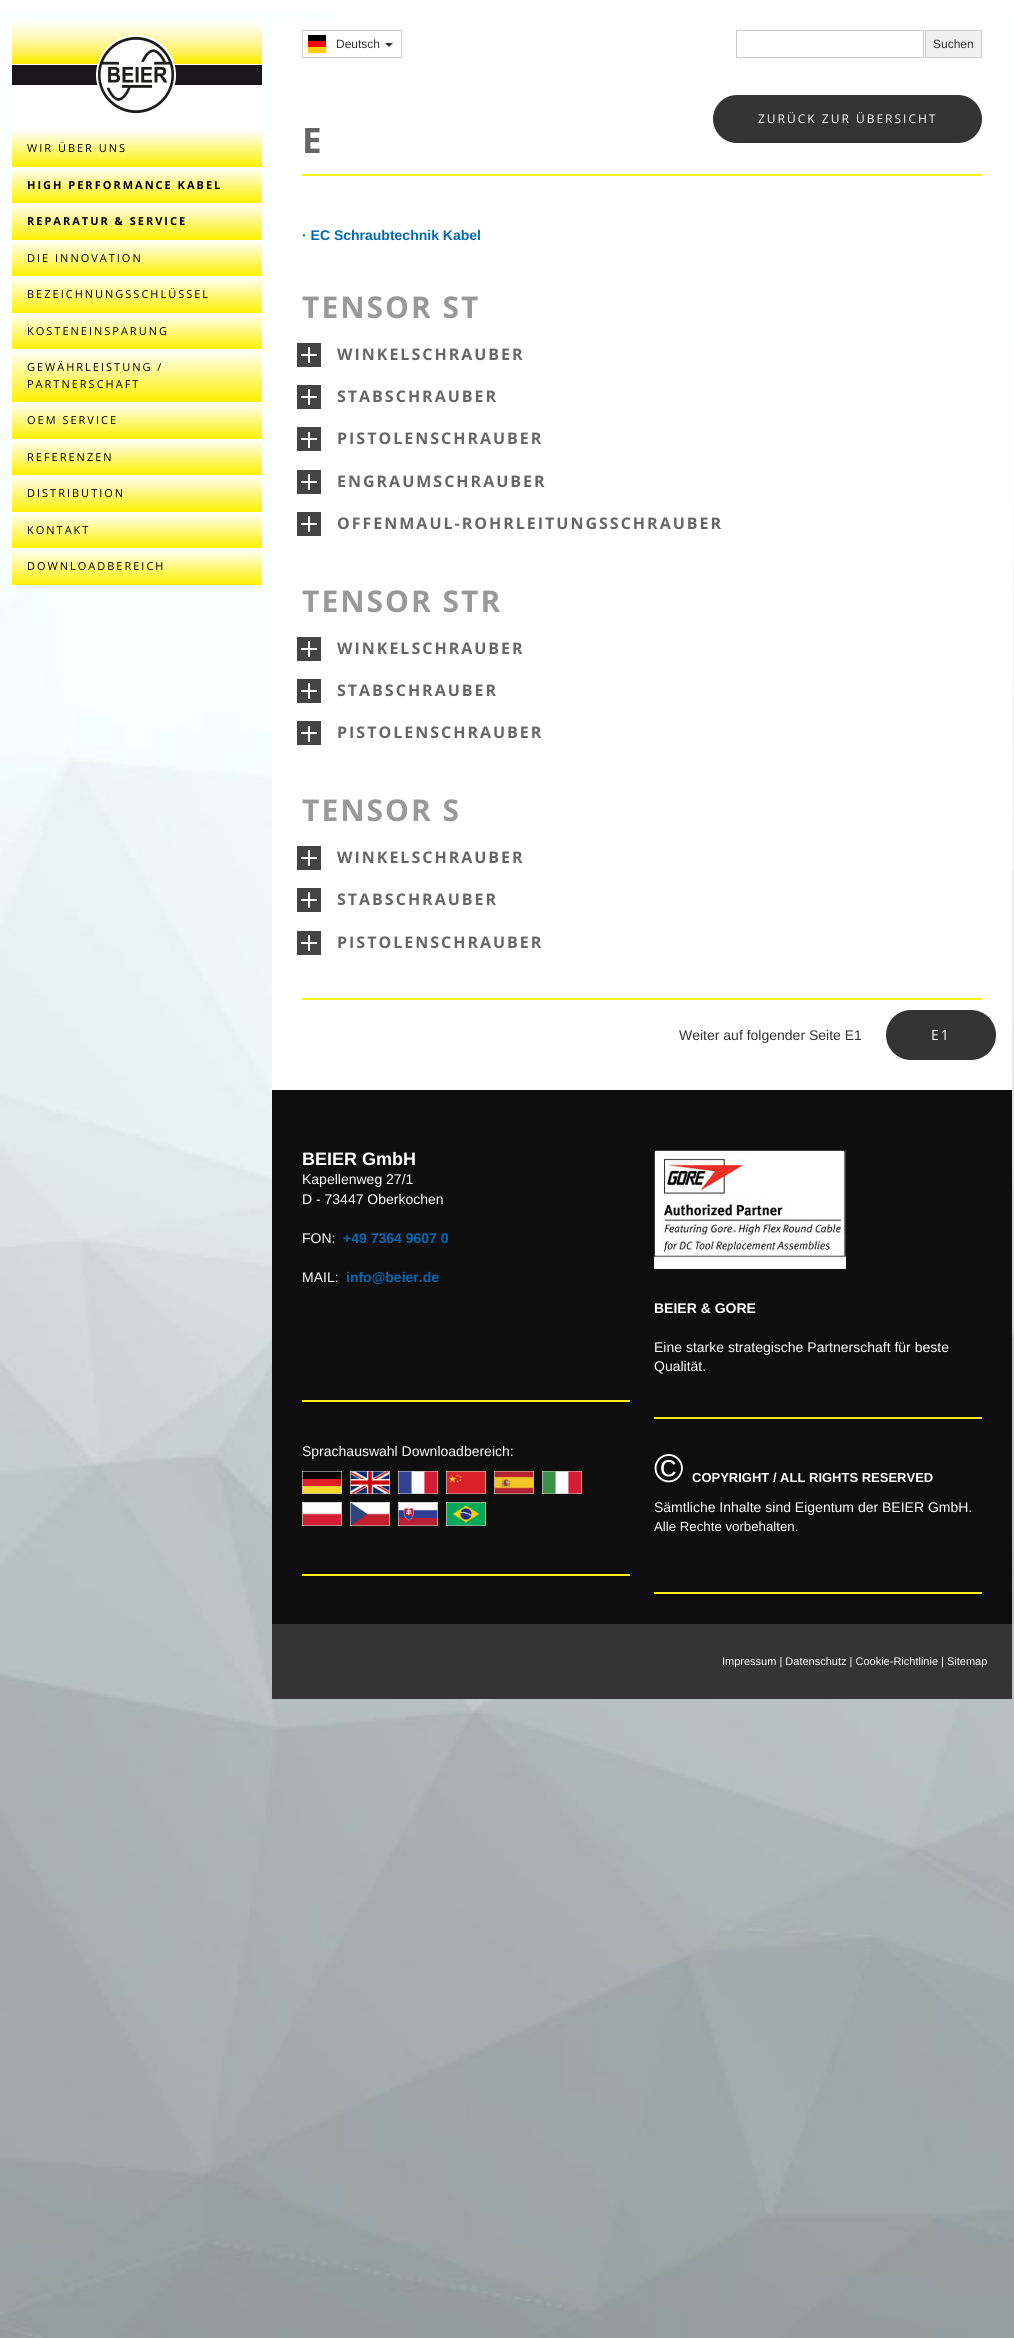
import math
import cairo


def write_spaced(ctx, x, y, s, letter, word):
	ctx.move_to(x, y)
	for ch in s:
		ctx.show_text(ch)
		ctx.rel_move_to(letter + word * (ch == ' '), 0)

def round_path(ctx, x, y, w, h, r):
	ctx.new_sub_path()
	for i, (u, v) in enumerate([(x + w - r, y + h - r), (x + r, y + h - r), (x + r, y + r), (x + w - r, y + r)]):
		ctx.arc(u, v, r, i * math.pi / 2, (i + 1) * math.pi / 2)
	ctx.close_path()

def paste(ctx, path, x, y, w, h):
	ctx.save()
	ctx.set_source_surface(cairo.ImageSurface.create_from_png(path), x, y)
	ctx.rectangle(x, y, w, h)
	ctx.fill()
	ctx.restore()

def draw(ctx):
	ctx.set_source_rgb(1, 1, 1)
	ctx.paint()
	paste(ctx, 'media/1.png', 0, 12, 1014, 2326)
	ctx.set_source_rgb(1, 1, 1)
	ctx.rectangle(272, 20, 740, 1070)
	ctx.fill()
	ctx.rectangle(302.5, 30.5, 99, 27)
	ctx.set_source_rgb(0.8, 0.8, 0.8)
	ctx.set_line_width(1)
	ctx.stroke()
	paste(ctx, 'media/2.png', 308, 35, 18, 18)
	ctx.select_font_face('Liberation Sans')
	ctx.set_font_size(12)
	ctx.set_source_rgb(0.2, 0.2, 0.2)
	ctx.move_to(336, 48)
	ctx.show_text('Deutsch')
	ctx.new_path()
	ctx.move_to(385, 43)
	ctx.line_to(393, 43)
	ctx.line_to(389, 47)
	ctx.close_path()
	ctx.fill()
	ctx.rectangle(736.5, 30.5, 187, 27)
	ctx.set_source_rgb(0.8, 0.8, 0.8)
	ctx.stroke()
	ctx.set_source_rgb(0.937, 0.937, 0.937)
	ctx.rectangle(925.5, 30.5, 56, 27)
	ctx.fill_preserve()
	ctx.set_source_rgb(0.8, 0.8, 0.8)
	ctx.stroke()
	ctx.set_source_rgb(0.2, 0.2, 0.2)
	ctx.move_to(933, 48)
	ctx.show_text('Suchen')
	ctx.set_source_rgb(1, 1, 1)
	ctx.rectangle(12, 20, 250, 110)
	ctx.fill()
	paste(ctx, 'media/3.png', 12, 22, 250, 63)
	paste(ctx, 'media/4.png', 96, 35, 80, 78)
	gradient = cairo.LinearGradient(137, 130, 137, 167)
	gradient.add_color_stop_rgba(0, 1, 1, 1, 1)
	gradient.add_color_stop_rgba(1, 1, 0.945, 0, 1)
	ctx.set_source(gradient)
	ctx.rectangle(12, 130, 250, 37)
	ctx.fill()
	ctx.select_font_face('Open Sans')
	ctx.set_font_size(11)
	ctx.set_source_rgb(0, 0, 0)
	write_spaced(ctx, 27, 152, 'WIR ÜBER UNS', 2, 0)
	gradient = cairo.LinearGradient(137, 167, 137, 203)
	gradient.add_color_stop_rgba(0, 1, 1, 1, 1)
	gradient.add_color_stop_rgba(1, 1, 0.945, 0, 1)
	ctx.set_source(gradient)
	ctx.rectangle(12, 167, 250, 36)
	ctx.fill()
	ctx.select_font_face('Open Sans', cairo.FONT_SLANT_NORMAL, cairo.FONT_WEIGHT_BOLD)
	ctx.set_source_rgb(0, 0, 0)
	write_spaced(ctx, 27, 189, 'HIGH PERFORMANCE KABEL', 2, 0)
	gradient = cairo.LinearGradient(137, 203, 137, 240)
	gradient.add_color_stop_rgba(0, 1, 1, 1, 1)
	gradient.add_color_stop_rgba(1, 1, 0.945, 0, 1)
	ctx.set_source(gradient)
	ctx.rectangle(12, 203, 250, 37)
	ctx.fill()
	ctx.set_source_rgb(0, 0, 0)
	write_spaced(ctx, 27, 225, 'REPARATUR & SERVICE', 2, 0)
	gradient = cairo.LinearGradient(137, 240, 137, 276)
	gradient.add_color_stop_rgba(0, 1, 1, 1, 1)
	gradient.add_color_stop_rgba(1, 1, 0.945, 0, 1)
	ctx.set_source(gradient)
	ctx.rectangle(12, 240, 250, 36)
	ctx.fill()
	ctx.select_font_face('Open Sans')
	ctx.set_source_rgb(0, 0, 0)
	write_spaced(ctx, 27, 262, 'DIE INNOVATION', 2, 0)
	gradient = cairo.LinearGradient(137, 276, 137, 313)
	gradient.add_color_stop_rgba(0, 1, 1, 1, 1)
	gradient.add_color_stop_rgba(1, 1, 0.945, 0, 1)
	ctx.set_source(gradient)
	ctx.rectangle(12, 276, 250, 37)
	ctx.fill()
	ctx.set_source_rgb(0, 0, 0)
	write_spaced(ctx, 27, 298, 'BEZEICHNUNGSSCHLÜSSEL', 2, 0)
	gradient = cairo.LinearGradient(137, 313, 137, 349)
	gradient.add_color_stop_rgba(0, 1, 1, 1, 1)
	gradient.add_color_stop_rgba(1, 1, 0.945, 0, 1)
	ctx.set_source(gradient)
	ctx.rectangle(12, 313, 250, 36)
	ctx.fill()
	ctx.set_source_rgb(0, 0, 0)
	write_spaced(ctx, 27, 335, 'KOSTENEINSPARUNG', 2, 0)
	gradient = cairo.LinearGradient(137, 349, 137, 402)
	gradient.add_color_stop_rgba(0, 1, 1, 1, 1)
	gradient.add_color_stop_rgba(1, 1, 0.945, 0, 1)
	ctx.set_source(gradient)
	ctx.rectangle(12, 349, 250, 53)
	ctx.fill()
	ctx.set_source_rgb(0, 0, 0)
	write_spaced(ctx, 27, 371, 'GEWÄHRLEISTUNG /', 2, 0)
	write_spaced(ctx, 27, 388, 'PARTNERSCHAFT', 2, 0)
	gradient = cairo.LinearGradient(137, 402, 137, 439)
	gradient.add_color_stop_rgba(0, 1, 1, 1, 1)
	gradient.add_color_stop_rgba(1, 1, 0.945, 0, 1)
	ctx.set_source(gradient)
	ctx.rectangle(12, 402, 250, 37)
	ctx.fill()
	ctx.set_source_rgb(0, 0, 0)
	write_spaced(ctx, 27, 424, 'OEM SERVICE', 2, 0)
	gradient = cairo.LinearGradient(137, 439, 137, 475)
	gradient.add_color_stop_rgba(0, 1, 1, 1, 1)
	gradient.add_color_stop_rgba(1, 1, 0.945, 0, 1)
	ctx.set_source(gradient)
	ctx.rectangle(12, 439, 250, 36)
	ctx.fill()
	ctx.set_source_rgb(0, 0, 0)
	write_spaced(ctx, 27, 461, 'REFERENZEN', 2, 0)
	gradient = cairo.LinearGradient(137, 475, 137, 512)
	gradient.add_color_stop_rgba(0, 1, 1, 1, 1)
	gradient.add_color_stop_rgba(1, 1, 0.945, 0, 1)
	ctx.set_source(gradient)
	ctx.rectangle(12, 475, 250, 37)
	ctx.fill()
	ctx.set_source_rgb(0, 0, 0)
	write_spaced(ctx, 27, 497, 'DISTRIBUTION', 2, 0)
	gradient = cairo.LinearGradient(137, 512, 137, 548)
	gradient.add_color_stop_rgba(0, 1, 1, 1, 1)
	gradient.add_color_stop_rgba(1, 1, 0.945, 0, 1)
	ctx.set_source(gradient)
	ctx.rectangle(12, 512, 250, 36)
	ctx.fill()
	ctx.set_source_rgb(0, 0, 0)
	write_spaced(ctx, 27, 534, 'KONTAKT', 2, 0)
	gradient = cairo.LinearGradient(137, 548, 137, 585)
	gradient.add_color_stop_rgba(0, 1, 1, 1, 1)
	gradient.add_color_stop_rgba(1, 1, 0.945, 0, 1)
	ctx.set_source(gradient)
	ctx.rectangle(12, 548, 250, 37)
	ctx.fill()
	ctx.set_source_rgb(0, 0, 0)
	write_spaced(ctx, 27, 570, 'DOWNLOADBEREICH', 2, 0)
	ctx.set_source_rgb(0.204, 0.204, 0.204)
	round_path(ctx, 713, 95, 269, 48, 24)
	ctx.fill()
	ctx.set_font_size(12)
	ctx.set_source_rgb(1, 1, 1)
	write_spaced(ctx, 758, 123, 'ZURÜCK ZUR ÜBERSICHT', 2, 0)
	ctx.select_font_face('Open Sans', cairo.FONT_SLANT_NORMAL, cairo.FONT_WEIGHT_BOLD)
	ctx.set_font_size(35)
	ctx.set_source_rgb(0.4, 0.4, 0.4)
	write_spaced(ctx, 302, 153, 'E', 2, 0)
	ctx.set_source_rgb(1, 0.937, 0.094)
	ctx.rectangle(302, 174, 680, 2)
	ctx.fill()
	ctx.select_font_face('Liberation Sans', cairo.FONT_SLANT_NORMAL, cairo.FONT_WEIGHT_BOLD)
	ctx.set_font_size(14)
	ctx.set_source_rgb(0, 0.416, 0.702)
	ctx.move_to(302, 240)
	ctx.show_text('· EC Schraubtechnik Kabel')
	ctx.select_font_face('Open Sans', cairo.FONT_SLANT_NORMAL, cairo.FONT_WEIGHT_BOLD)
	ctx.set_font_size(30)
	ctx.set_source_rgb(0.6, 0.6, 0.6)
	write_spaced(ctx, 302, 318, 'TENSOR ST', 2, 0)
	ctx.set_source_rgb(0.267, 0.267, 0.267)
	ctx.rectangle(297, 343, 24, 24)
	ctx.fill()
	ctx.set_source_rgb(1, 1, 1)
	ctx.rectangle(301, 354, 16, 2)
	ctx.rectangle(308, 347, 2, 16)
	ctx.fill()
	ctx.set_font_size(16)
	ctx.set_source_rgb(0.4, 0.4, 0.4)
	write_spaced(ctx, 337, 360, 'WINKELSCHRAUBER', 2, 0)
	ctx.set_source_rgb(0.267, 0.267, 0.267)
	ctx.rectangle(297, 385, 24, 24)
	ctx.fill()
	ctx.set_source_rgb(1, 1, 1)
	ctx.rectangle(301, 396, 16, 2)
	ctx.rectangle(308, 389, 2, 16)
	ctx.fill()
	ctx.set_source_rgb(0.4, 0.4, 0.4)
	write_spaced(ctx, 337, 402, 'STABSCHRAUBER', 2, 0)
	ctx.set_source_rgb(0.267, 0.267, 0.267)
	ctx.rectangle(297, 427, 24, 24)
	ctx.fill()
	ctx.set_source_rgb(1, 1, 1)
	ctx.rectangle(301, 438, 16, 2)
	ctx.rectangle(308, 432, 2, 16)
	ctx.fill()
	ctx.set_source_rgb(0.4, 0.4, 0.4)
	write_spaced(ctx, 337, 444, 'PISTOLENSCHRAUBER', 2, 0)
	ctx.set_source_rgb(0.267, 0.267, 0.267)
	ctx.rectangle(297, 470, 24, 24)
	ctx.fill()
	ctx.set_source_rgb(1, 1, 1)
	ctx.rectangle(301, 481, 16, 2)
	ctx.rectangle(308, 474, 2, 16)
	ctx.fill()
	ctx.set_source_rgb(0.4, 0.4, 0.4)
	write_spaced(ctx, 337, 487, 'ENGRAUMSCHRAUBER', 2, 0)
	ctx.set_source_rgb(0.267, 0.267, 0.267)
	ctx.rectangle(297, 512, 24, 24)
	ctx.fill()
	ctx.set_source_rgb(1, 1, 1)
	ctx.rectangle(301, 523, 16, 2)
	ctx.rectangle(308, 516, 2, 16)
	ctx.fill()
	ctx.set_source_rgb(0.4, 0.4, 0.4)
	write_spaced(ctx, 337, 529, 'OFFENMAUL-ROHRLEITUNGSSCHRAUBER', 2, 0)
	ctx.set_font_size(30)
	ctx.set_source_rgb(0.6, 0.6, 0.6)
	write_spaced(ctx, 302, 612, 'TENSOR STR', 2, 0)
	ctx.set_source_rgb(0.267, 0.267, 0.267)
	ctx.rectangle(297, 637, 24, 24)
	ctx.fill()
	ctx.set_source_rgb(1, 1, 1)
	ctx.rectangle(301, 648, 16, 2)
	ctx.rectangle(308, 641, 2, 16)
	ctx.fill()
	ctx.set_font_size(16)
	ctx.set_source_rgb(0.4, 0.4, 0.4)
	write_spaced(ctx, 337, 654, 'WINKELSCHRAUBER', 2, 0)
	ctx.set_source_rgb(0.267, 0.267, 0.267)
	ctx.rectangle(297, 679, 24, 24)
	ctx.fill()
	ctx.set_source_rgb(1, 1, 1)
	ctx.rectangle(301, 690, 16, 2)
	ctx.rectangle(308, 683, 2, 16)
	ctx.fill()
	ctx.set_source_rgb(0.4, 0.4, 0.4)
	write_spaced(ctx, 337, 696, 'STABSCHRAUBER', 2, 0)
	ctx.set_source_rgb(0.267, 0.267, 0.267)
	ctx.rectangle(297, 721, 24, 24)
	ctx.fill()
	ctx.set_source_rgb(1, 1, 1)
	ctx.rectangle(301, 732, 16, 2)
	ctx.rectangle(308, 726, 2, 16)
	ctx.fill()
	ctx.set_source_rgb(0.4, 0.4, 0.4)
	write_spaced(ctx, 337, 738, 'PISTOLENSCHRAUBER', 2, 0)
	ctx.set_font_size(30)
	ctx.set_source_rgb(0.6, 0.6, 0.6)
	write_spaced(ctx, 302, 821, 'TENSOR S', 2, 0)
	ctx.set_source_rgb(0.267, 0.267, 0.267)
	ctx.rectangle(297, 846, 24, 24)
	ctx.fill()
	ctx.set_source_rgb(1, 1, 1)
	ctx.rectangle(301, 857, 16, 2)
	ctx.rectangle(308, 850, 2, 16)
	ctx.fill()
	ctx.set_font_size(16)
	ctx.set_source_rgb(0.4, 0.4, 0.4)
	write_spaced(ctx, 337, 863, 'WINKELSCHRAUBER', 2, 0)
	ctx.set_source_rgb(0.267, 0.267, 0.267)
	ctx.rectangle(297, 888, 24, 24)
	ctx.fill()
	ctx.set_source_rgb(1, 1, 1)
	ctx.rectangle(301, 899, 16, 2)
	ctx.rectangle(308, 892, 2, 16)
	ctx.fill()
	ctx.set_source_rgb(0.4, 0.4, 0.4)
	write_spaced(ctx, 337, 905, 'STABSCHRAUBER', 2, 0)
	ctx.set_source_rgb(0.267, 0.267, 0.267)
	ctx.rectangle(297, 931, 24, 24)
	ctx.fill()
	ctx.set_source_rgb(1, 1, 1)
	ctx.rectangle(301, 942, 16, 2)
	ctx.rectangle(308, 935, 2, 16)
	ctx.fill()
	ctx.set_source_rgb(0.4, 0.4, 0.4)
	write_spaced(ctx, 337, 948, 'PISTOLENSCHRAUBER', 2, 0)
	ctx.set_source_rgb(1, 0.937, 0.094)
	ctx.rectangle(302, 998, 680, 2)
	ctx.fill()
	ctx.select_font_face('Liberation Sans')
	ctx.set_font_size(14)
	ctx.set_source_rgb(0.2, 0.2, 0.2)
	ctx.move_to(679, 1040)
	ctx.show_text('Weiter auf folgender Seite E1')
	ctx.set_source_rgb(0.204, 0.204, 0.204)
	round_path(ctx, 886, 1010, 110, 50, 25)
	ctx.fill()
	ctx.select_font_face('Open Sans')
	ctx.set_source_rgb(1, 1, 1)
	write_spaced(ctx, 931, 1040, 'E1', 2, 0)
	ctx.set_source_rgb(0.055, 0.055, 0.055)
	ctx.rectangle(272, 1090, 740, 534)
	ctx.fill()
	ctx.select_font_face('Liberation Sans', cairo.FONT_SLANT_NORMAL, cairo.FONT_WEIGHT_BOLD)
	ctx.set_font_size(18)
	ctx.set_source_rgb(1, 1, 1)
	ctx.move_to(302, 1165)
	ctx.show_text('BEIER GmbH')
	ctx.select_font_face('Liberation Sans')
	ctx.set_font_size(14)
	for x, y, s in [
		(302, 1184, 'Kapellenweg 27/1'),
		(302, 1204, 'D - 73447 Oberkochen'),
		(302, 1243, 'FON:'),
	]:
		ctx.move_to(x, y)
		ctx.show_text(s)
	ctx.select_font_face('Liberation Sans', cairo.FONT_SLANT_NORMAL, cairo.FONT_WEIGHT_BOLD)
	ctx.set_source_rgb(0, 0.416, 0.702)
	ctx.move_to(343, 1243)
	ctx.show_text('+49 7364 9607 0')
	ctx.select_font_face('Liberation Sans')
	ctx.set_source_rgb(1, 1, 1)
	ctx.move_to(302, 1282)
	ctx.show_text('MAIL:')
	ctx.select_font_face('Liberation Sans', cairo.FONT_SLANT_NORMAL, cairo.FONT_WEIGHT_BOLD)
	ctx.set_source_rgb(0, 0.416, 0.702)
	ctx.move_to(346, 1282)
	ctx.show_text('info@beier.de')
	ctx.set_source_rgb(1, 0.937, 0.094)
	ctx.rectangle(302, 1400, 328, 2)
	ctx.fill()
	ctx.select_font_face('Liberation Sans')
	ctx.set_source_rgb(1, 1, 1)
	ctx.move_to(302, 1456)
	ctx.show_text('Sprachauswahl Downloadbereich:')
	paste(ctx, 'media/5.png', 302, 1471, 40, 23)
	paste(ctx, 'media/6.png', 350, 1471, 40, 23)
	paste(ctx, 'media/7.png', 398, 1471, 40, 23)
	paste(ctx, 'media/8.png', 446, 1471, 40, 23)
	paste(ctx, 'media/9.png', 494, 1471, 40, 23)
	paste(ctx, 'media/10.png', 542, 1471, 40, 23)
	paste(ctx, 'media/11.png', 302, 1502, 40, 24)
	paste(ctx, 'media/12.png', 350, 1502, 40, 24)
	paste(ctx, 'media/13.png', 398, 1502, 40, 24)
	paste(ctx, 'media/14.png', 446, 1502, 40, 24)
	ctx.set_source_rgb(1, 0.937, 0.094)
	ctx.rectangle(302, 1574, 328, 2)
	ctx.fill()
	paste(ctx, 'media/15.png', 654, 1150, 192, 119)
	ctx.select_font_face('Liberation Sans', cairo.FONT_SLANT_NORMAL, cairo.FONT_WEIGHT_BOLD)
	ctx.set_source_rgb(1, 1, 1)
	ctx.move_to(654, 1313)
	ctx.show_text('BEIER & GORE')
	ctx.select_font_face('Liberation Sans')
	ctx.move_to(654, 1352)
	ctx.show_text('Eine starke strategische Partnerschaft für beste')
	ctx.move_to(654, 1371)
	ctx.show_text('Qualität.')
	ctx.set_source_rgb(1, 0.937, 0.094)
	ctx.rectangle(654, 1417, 328, 2)
	ctx.fill()
	ctx.set_font_size(40)
	ctx.set_source_rgb(1, 1, 1)
	ctx.move_to(654, 1482)
	ctx.show_text('©')
	ctx.select_font_face('Liberation Sans', cairo.FONT_SLANT_NORMAL, cairo.FONT_WEIGHT_BOLD)
	ctx.set_font_size(13)
	ctx.move_to(692, 1482)
	ctx.show_text('COPYRIGHT / ALL RIGHTS RESERVED')
	ctx.select_font_face('Liberation Sans')
	ctx.set_font_size(14)
	ctx.move_to(654, 1512)
	ctx.show_text('Sämtliche Inhalte sind Eigentum der BEIER GmbH.')
	ctx.set_font_size(13.25)
	ctx.move_to(654, 1531)
	ctx.show_text('Alle Rechte vorbehalten.')
	ctx.set_source_rgb(1, 0.937, 0.094)
	ctx.rectangle(654, 1592, 328, 2)
	ctx.fill()
	ctx.set_source_rgb(0.204, 0.204, 0.204)
	ctx.rectangle(272, 1624, 740, 75)
	ctx.fill()
	ctx.set_font_size(11)
	ctx.set_source_rgb(1, 1, 1)
	ctx.move_to(722, 1665)
	ctx.show_text('Impressum | Datenschutz | Cookie-Richtlinie | Sitemap')


surface = cairo.ImageSurface(cairo.FORMAT_RGB24, 1014, 2338)
ctx = cairo.Context(surface)
options = cairo.FontOptions()
options.set_hint_metrics(cairo.HINT_METRICS_OFF)
options.set_hint_style(cairo.HINT_STYLE_NONE)
ctx.set_font_options(options)
ctx.set_miter_limit(4)
draw(ctx)
surface.write_to_png('image.png')
